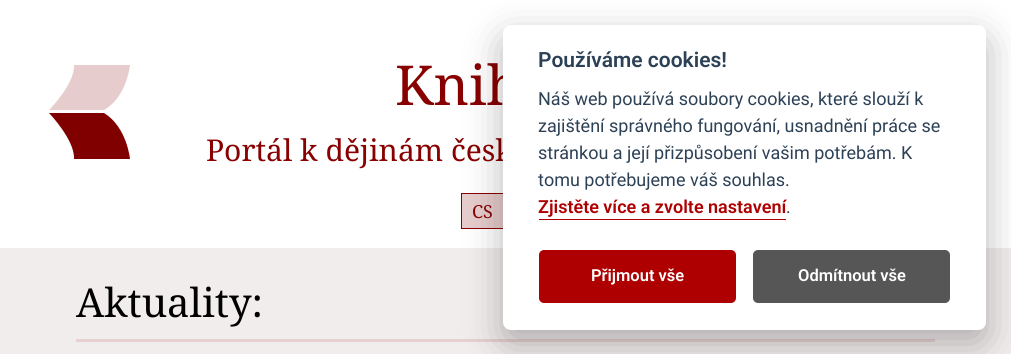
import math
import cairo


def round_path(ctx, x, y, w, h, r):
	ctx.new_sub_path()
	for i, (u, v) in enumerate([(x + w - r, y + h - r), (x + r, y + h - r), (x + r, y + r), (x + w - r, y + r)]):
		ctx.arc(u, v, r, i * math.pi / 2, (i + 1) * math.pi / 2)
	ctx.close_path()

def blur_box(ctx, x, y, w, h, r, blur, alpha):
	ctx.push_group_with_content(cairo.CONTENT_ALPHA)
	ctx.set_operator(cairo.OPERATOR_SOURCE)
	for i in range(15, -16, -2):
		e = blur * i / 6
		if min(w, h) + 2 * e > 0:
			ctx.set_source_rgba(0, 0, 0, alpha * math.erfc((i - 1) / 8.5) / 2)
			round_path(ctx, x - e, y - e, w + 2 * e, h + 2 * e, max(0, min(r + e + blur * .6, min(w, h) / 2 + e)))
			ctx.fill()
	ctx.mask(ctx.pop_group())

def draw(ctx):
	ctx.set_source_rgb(1, 1, 1)
	ctx.paint()
	ctx.set_source_rgb(0.502, 0, 0)
	ctx.new_path()
	ctx.move_to(74, 159)
	ctx.line_to(130, 159)
	ctx.curve_to(130, 159, 127, 127, 104, 113)
	ctx.line_to(49, 113)
	ctx.curve_to(49, 113, 75, 140, 74, 159)
	ctx.close_path()
	ctx.fill()
	ctx.set_source_rgb(0.902, 0.8, 0.8)
	ctx.new_path()
	ctx.move_to(74, 65)
	ctx.line_to(130, 65)
	ctx.curve_to(130, 65, 127, 97, 104, 110)
	ctx.line_to(49, 110)
	ctx.curve_to(49, 110, 75, 84, 74, 65)
	ctx.close_path()
	ctx.fill()
	ctx.select_font_face('Noto Serif')
	ctx.set_font_size(55)
	ctx.set_source_rgb(0.533, 0, 0)
	ctx.move_to(395, 105)
	ctx.show_text('Knih')
	ctx.set_font_size(30)
	ctx.move_to(206, 161)
	ctx.show_text('Portál k dějinám česk')
	ctx.set_source_rgb(0.902, 0.8, 0.8)
	ctx.rectangle(461.5, 193.5, 42, 35)
	ctx.fill_preserve()
	ctx.set_source_rgb(0.533, 0, 0)
	ctx.set_line_width(1)
	ctx.stroke()
	ctx.set_font_size(18)
	ctx.move_to(472, 218)
	ctx.show_text('CS')
	ctx.set_source_rgb(0.949, 0.929, 0.929)
	ctx.rectangle(0, 248, 1011, 106)
	ctx.fill()
	ctx.set_source_rgb(0.902, 0.816, 0.816)
	ctx.rectangle(76, 339, 859, 3)
	ctx.fill()
	ctx.set_font_size(40)
	ctx.set_source_rgb(0, 0, 0)
	ctx.move_to(76, 317)
	ctx.show_text('Aktuality:')
	ctx.set_source_rgb(0.008, 0.008, 0.012)
	blur_box(ctx, 503, 38, 483, 305, 8, 19, 0.28)
	ctx.set_source_rgb(1, 1, 1)
	round_path(ctx, 503, 25, 483, 305, 8)
	ctx.fill()
	ctx.select_font_face('Roboto SemiBold')
	ctx.set_font_size(21)
	ctx.set_source_rgb(0.176, 0.255, 0.337)
	ctx.move_to(538, 67)
	ctx.show_text('Používáme cookies!')
	ctx.select_font_face('Roboto')
	ctx.set_font_size(18)
	for x, y, s in [
		(538, 105, 'Náš web používá soubory cookies, které slouží k'),
		(538, 132, 'zajištění správného fungování, usnadnění práce se'),
		(538, 159, 'stránkou a její přizpůsobení vašim potřebám. K'),
		(538, 186, 'tomu potřebujeme váš souhlas.'),
	]:
		ctx.move_to(x, y)
		ctx.show_text(s)
	ctx.select_font_face('Roboto SemiBold')
	ctx.set_source_rgb(0.682, 0, 0.004)
	ctx.move_to(538, 213)
	ctx.show_text('Zjistěte více a zvolte nastavení')
	ctx.rectangle(539, 219, 247, 1)
	ctx.fill()
	ctx.select_font_face('Roboto')
	ctx.set_source_rgb(0.176, 0.255, 0.337)
	ctx.move_to(786, 213)
	ctx.show_text('.')
	ctx.set_source_rgb(0.682, 0, 0.004)
	round_path(ctx, 539, 250, 197, 53, 5)
	ctx.fill()
	ctx.select_font_face('Roboto SemiBold')
	ctx.set_font_size(16.5)
	ctx.set_source_rgb(1, 1, 1)
	ctx.move_to(591, 281)
	ctx.show_text('Přijmout vše')
	ctx.set_source_rgb(0.337, 0.337, 0.337)
	round_path(ctx, 753, 250, 197, 53, 5)
	ctx.fill()
	ctx.set_source_rgb(1, 1, 1)
	ctx.move_to(798, 281)
	ctx.show_text('Odmítnout vše')


surface = cairo.ImageSurface(cairo.FORMAT_RGB24, 1011, 354)
ctx = cairo.Context(surface)
options = cairo.FontOptions()
options.set_hint_metrics(cairo.HINT_METRICS_OFF)
options.set_hint_style(cairo.HINT_STYLE_NONE)
ctx.set_font_options(options)
ctx.set_miter_limit(4)
draw(ctx)
surface.write_to_png('image.png')
